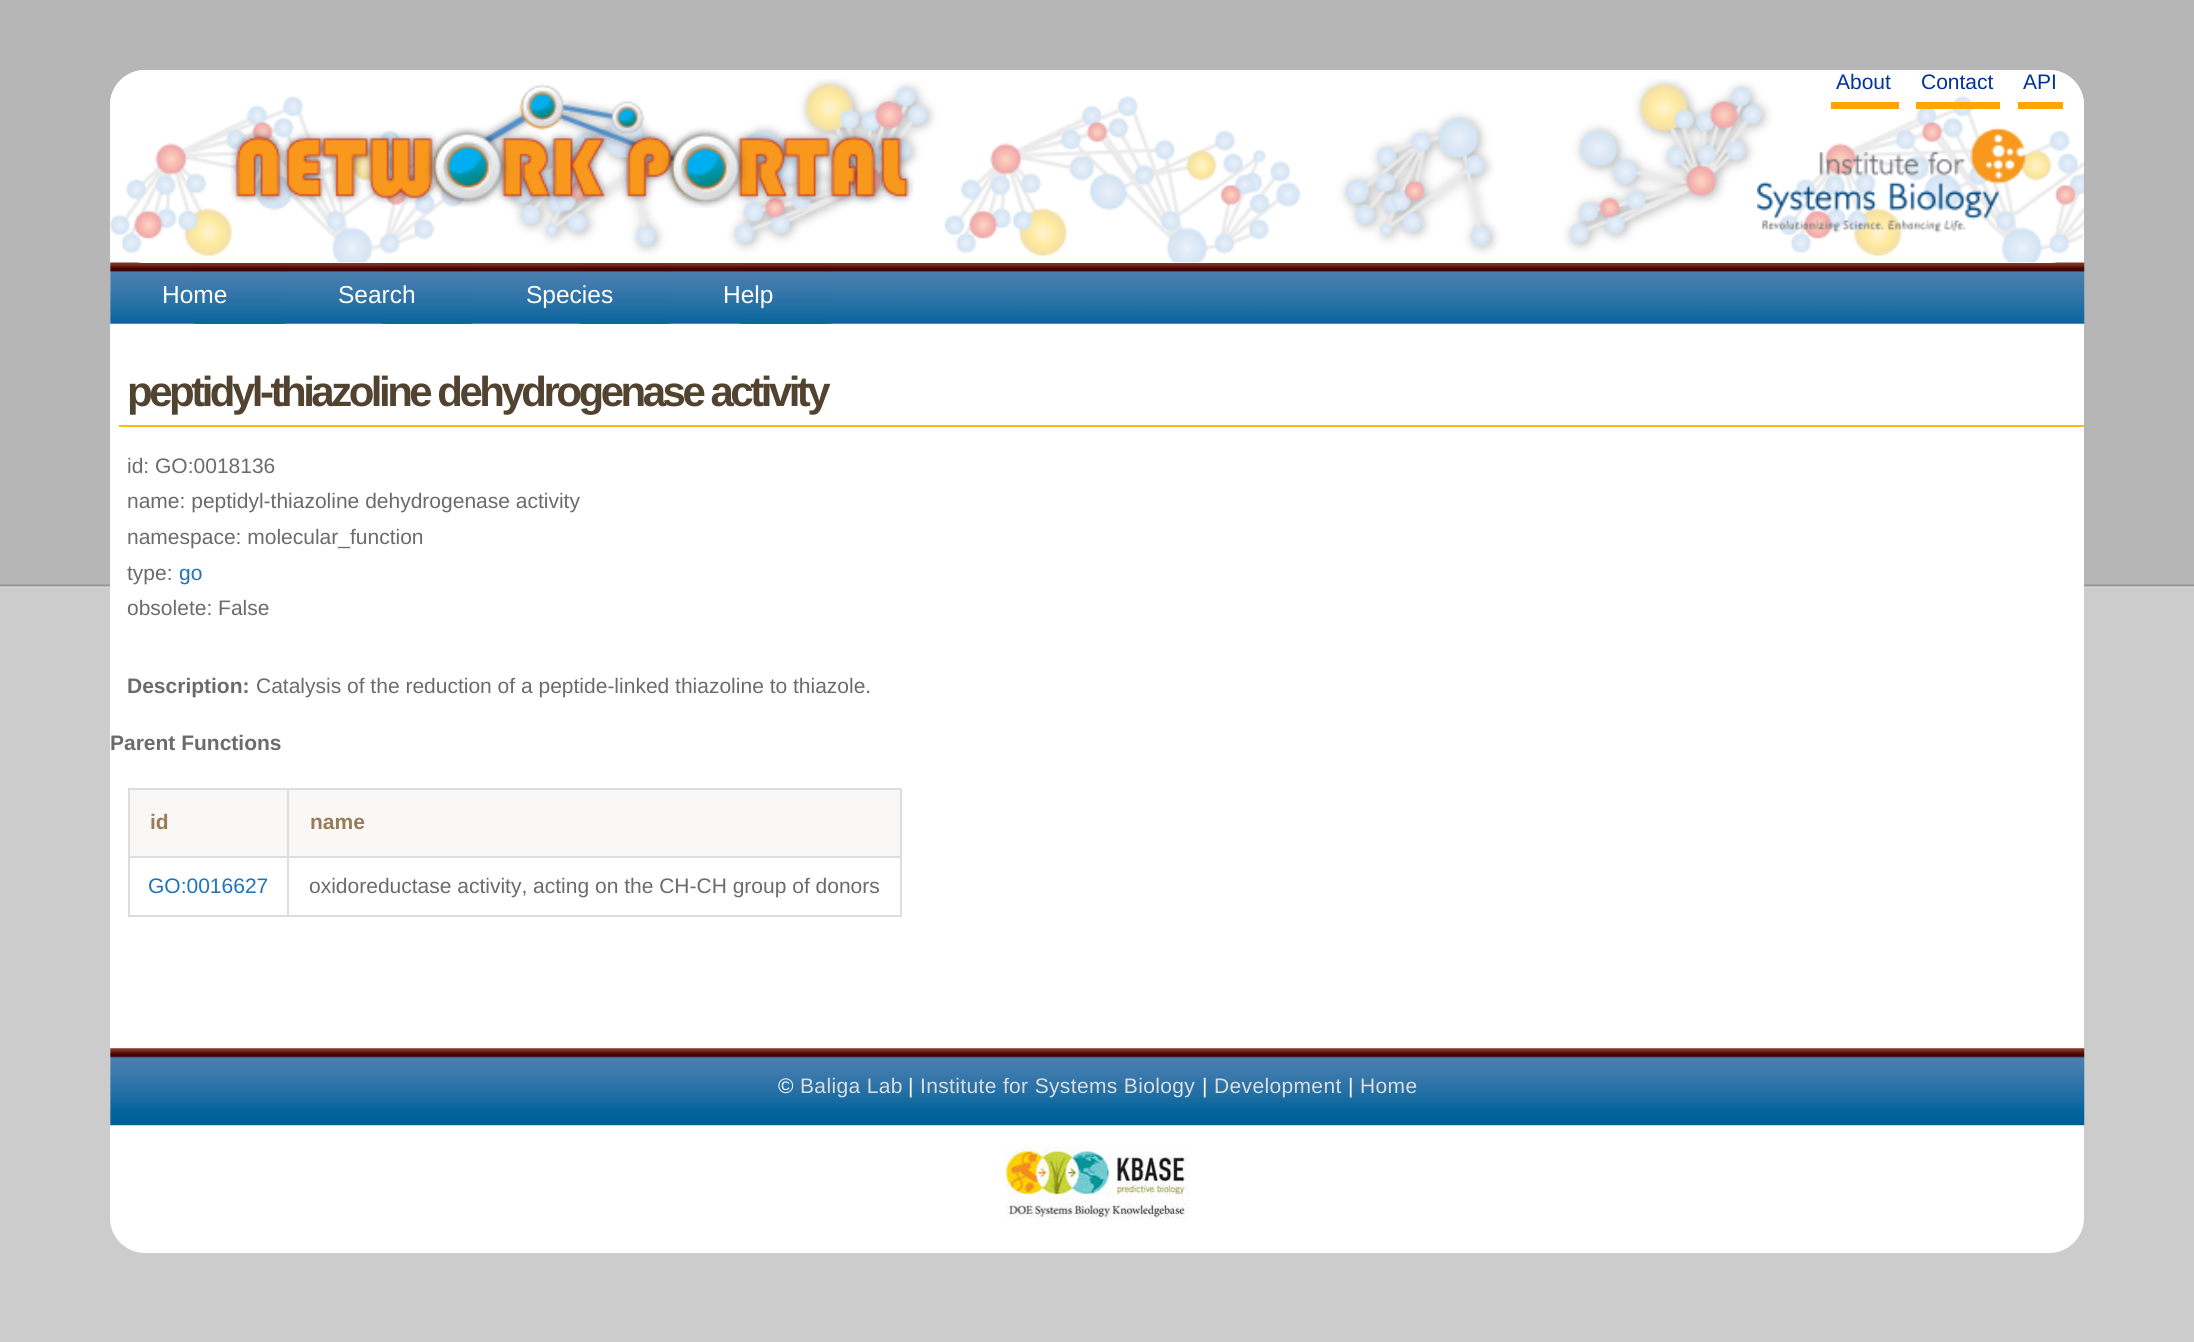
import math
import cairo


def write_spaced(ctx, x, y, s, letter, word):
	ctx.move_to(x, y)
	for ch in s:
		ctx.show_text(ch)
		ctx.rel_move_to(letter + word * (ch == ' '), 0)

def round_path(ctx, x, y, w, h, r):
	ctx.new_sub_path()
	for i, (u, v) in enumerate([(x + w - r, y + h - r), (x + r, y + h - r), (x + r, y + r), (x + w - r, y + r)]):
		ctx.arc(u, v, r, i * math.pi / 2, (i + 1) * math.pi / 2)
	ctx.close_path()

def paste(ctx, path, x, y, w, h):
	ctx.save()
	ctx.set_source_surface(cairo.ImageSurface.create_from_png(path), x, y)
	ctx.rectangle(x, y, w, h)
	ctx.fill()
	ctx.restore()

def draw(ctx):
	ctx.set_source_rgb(0.8, 0.8, 0.8)
	ctx.paint()
	paste(ctx, 'media/1.png', 0, 0, 2194, 588)
	ctx.set_source_rgb(1, 1, 1)
	round_path(ctx, 110, 70, 1974, 1183, 35)
	ctx.fill()
	paste(ctx, 'media/5.png', 110, 262, 1975, 62)
	round_path(ctx, 110, 70, 1974, 193, 35)
	ctx.fill()
	paste(ctx, 'media/2.png', 110, 79, 1974, 184)
	ctx.set_source_rgb(1, 0.647, 0)
	ctx.rectangle(1831, 102, 68, 7)
	ctx.fill()
	ctx.select_font_face('Liberation Sans')
	ctx.set_font_size(21)
	ctx.set_source_rgb(0, 0.2, 0.6)
	ctx.move_to(1836, 89)
	ctx.show_text('About')
	ctx.set_source_rgb(1, 0.647, 0)
	ctx.rectangle(1916, 102, 84, 7)
	ctx.fill()
	ctx.set_source_rgb(0, 0.2, 0.6)
	ctx.move_to(1921, 89)
	ctx.show_text('Contact')
	ctx.set_source_rgb(1, 0.647, 0)
	ctx.rectangle(2018, 102, 45, 7)
	ctx.fill()
	ctx.set_source_rgb(0, 0.2, 0.6)
	ctx.move_to(2023, 89)
	ctx.show_text('API')
	paste(ctx, 'media/3.png', 230, 84, 684, 124)
	paste(ctx, 'media/4.png', 1757, 127, 270, 106)
	paste(ctx, 'media/6.png', 199, 263, 87, 61)
	paste(ctx, 'media/7.png', 194, 263, 86, 61)
	ctx.set_font_size(24.5)
	ctx.set_source_rgb(1, 1, 1)
	ctx.move_to(162, 303)
	ctx.show_text('Home')
	paste(ctx, 'media/8.png', 386, 263, 87, 61)
	paste(ctx, 'media/9.png', 381, 263, 87, 61)
	ctx.move_to(338, 303)
	ctx.show_text('Search')
	paste(ctx, 'media/10.png', 584, 263, 87, 61)
	paste(ctx, 'media/7.png', 579, 263, 86, 61)
	ctx.move_to(526, 303)
	ctx.show_text('Species')
	paste(ctx, 'media/11.png', 745, 263, 87, 61)
	paste(ctx, 'media/7.png', 740, 263, 86, 61)
	ctx.move_to(723, 303)
	ctx.show_text('Help')
	ctx.set_source_rgb(1, 0.725, 0.059)
	ctx.rectangle(119, 425, 1965, 2)
	ctx.fill()
	ctx.select_font_face('Liberation Sans', cairo.FONT_SLANT_NORMAL, cairo.FONT_WEIGHT_BOLD)
	ctx.set_font_size(42)
	ctx.set_source_rgb(0.318, 0.263, 0.184)
	write_spaced(ctx, 127, 406, 'peptidyl-thiazoline dehydrogenase activity', -3.5, 0)
	ctx.select_font_face('Liberation Sans')
	ctx.set_font_size(21)
	ctx.set_source_rgb(0.42, 0.42, 0.42)
	for x, y, s in [
		(127, 473, 'id: GO:0018136'),
		(127, 508, 'name: peptidyl-thiazoline dehydrogenase activity'),
		(127, 544, 'namespace: molecular_function'),
		(127, 580, 'type:'),
	]:
		ctx.move_to(x, y)
		ctx.show_text(s)
	ctx.set_source_rgb(0.11, 0.459, 0.737)
	ctx.move_to(179, 580)
	ctx.show_text('go')
	ctx.set_source_rgb(0.42, 0.42, 0.42)
	ctx.move_to(127, 615)
	ctx.show_text('obsolete: False')
	ctx.select_font_face('Liberation Sans', cairo.FONT_SLANT_NORMAL, cairo.FONT_WEIGHT_BOLD)
	ctx.move_to(127, 693)
	ctx.show_text('Description:')
	ctx.select_font_face('Liberation Sans')
	ctx.move_to(256, 693)
	ctx.show_text('Catalysis of the reduction of a peptide-linked thiazoline to thiazole.')
	ctx.select_font_face('Liberation Sans', cairo.FONT_SLANT_NORMAL, cairo.FONT_WEIGHT_BOLD)
	ctx.move_to(110, 750)
	ctx.show_text('Parent Functions')
	ctx.set_source_rgb(0.98, 0.969, 0.961)
	ctx.rectangle(130, 790, 157, 66)
	ctx.fill()
	ctx.set_source_rgb(0.867, 0.867, 0.867)
	ctx.rectangle(287, 788, 614, 2)
	ctx.rectangle(287, 856, 614, 2)
	ctx.rectangle(900, 856, 2, 61)
	ctx.rectangle(287, 915, 614, 2)
	ctx.rectangle(287, 856, 2, 61)
	ctx.rectangle(128, 856, 161, 2)
	ctx.rectangle(287, 788, 2, 70)
	ctx.rectangle(128, 788, 161, 2)
	ctx.rectangle(128, 915, 161, 2)
	ctx.rectangle(128, 856, 2, 61)
	ctx.rectangle(128, 788, 2, 70)
	ctx.fill()
	ctx.set_source_rgb(0.592, 0.486, 0.341)
	ctx.move_to(150, 829)
	ctx.show_text('id')
	ctx.set_source_rgb(0.98, 0.969, 0.961)
	ctx.rectangle(289, 790, 611, 66)
	ctx.fill()
	ctx.set_source_rgb(0.867, 0.867, 0.867)
	ctx.rectangle(900, 788, 2, 70)
	ctx.fill()
	ctx.set_source_rgb(0.592, 0.486, 0.341)
	ctx.move_to(310, 829)
	ctx.show_text('name')
	ctx.select_font_face('Liberation Sans')
	ctx.set_source_rgb(0.11, 0.459, 0.737)
	ctx.move_to(148, 893)
	ctx.show_text('GO:0016627')
	ctx.set_source_rgb(0.42, 0.42, 0.42)
	ctx.move_to(309, 893)
	ctx.show_text('oxidoreductase activity, acting on the CH-CH group of donors')
	paste(ctx, 'media/12.png', 110, 1048, 1975, 78)
	ctx.set_source_rgb(1, 1, 1)
	write_spaced(ctx, 778, 1093, '©', 0.35, 0)
	ctx.set_source_rgb(0.867, 0.867, 0.867)
	write_spaced(ctx, 800, 1093, 'Baliga Lab', 0.35, 0)
	ctx.set_source_rgb(1, 1, 1)
	write_spaced(ctx, 908, 1093, '|', 0.35, 0)
	ctx.set_source_rgb(0.867, 0.867, 0.867)
	write_spaced(ctx, 920, 1093, 'Institute for Systems Biology', 0.35, 0)
	ctx.set_source_rgb(1, 1, 1)
	write_spaced(ctx, 1202, 1093, '|', 0.35, 0)
	ctx.set_source_rgb(0.867, 0.867, 0.867)
	write_spaced(ctx, 1214, 1093, 'Development', 0.35, 0)
	ctx.set_source_rgb(1, 1, 1)
	write_spaced(ctx, 1348, 1093, '|', 0.35, 0)
	ctx.set_source_rgb(0.867, 0.867, 0.867)
	write_spaced(ctx, 1360, 1093, 'Home', 0.35, 0)
	paste(ctx, 'media/13.png', 1005, 1147, 184, 72)


surface = cairo.ImageSurface(cairo.FORMAT_RGB24, 2194, 1342)
ctx = cairo.Context(surface)
options = cairo.FontOptions()
options.set_hint_metrics(cairo.HINT_METRICS_OFF)
options.set_hint_style(cairo.HINT_STYLE_NONE)
ctx.set_font_options(options)
ctx.set_miter_limit(4)
draw(ctx)
surface.write_to_png('image.png')
